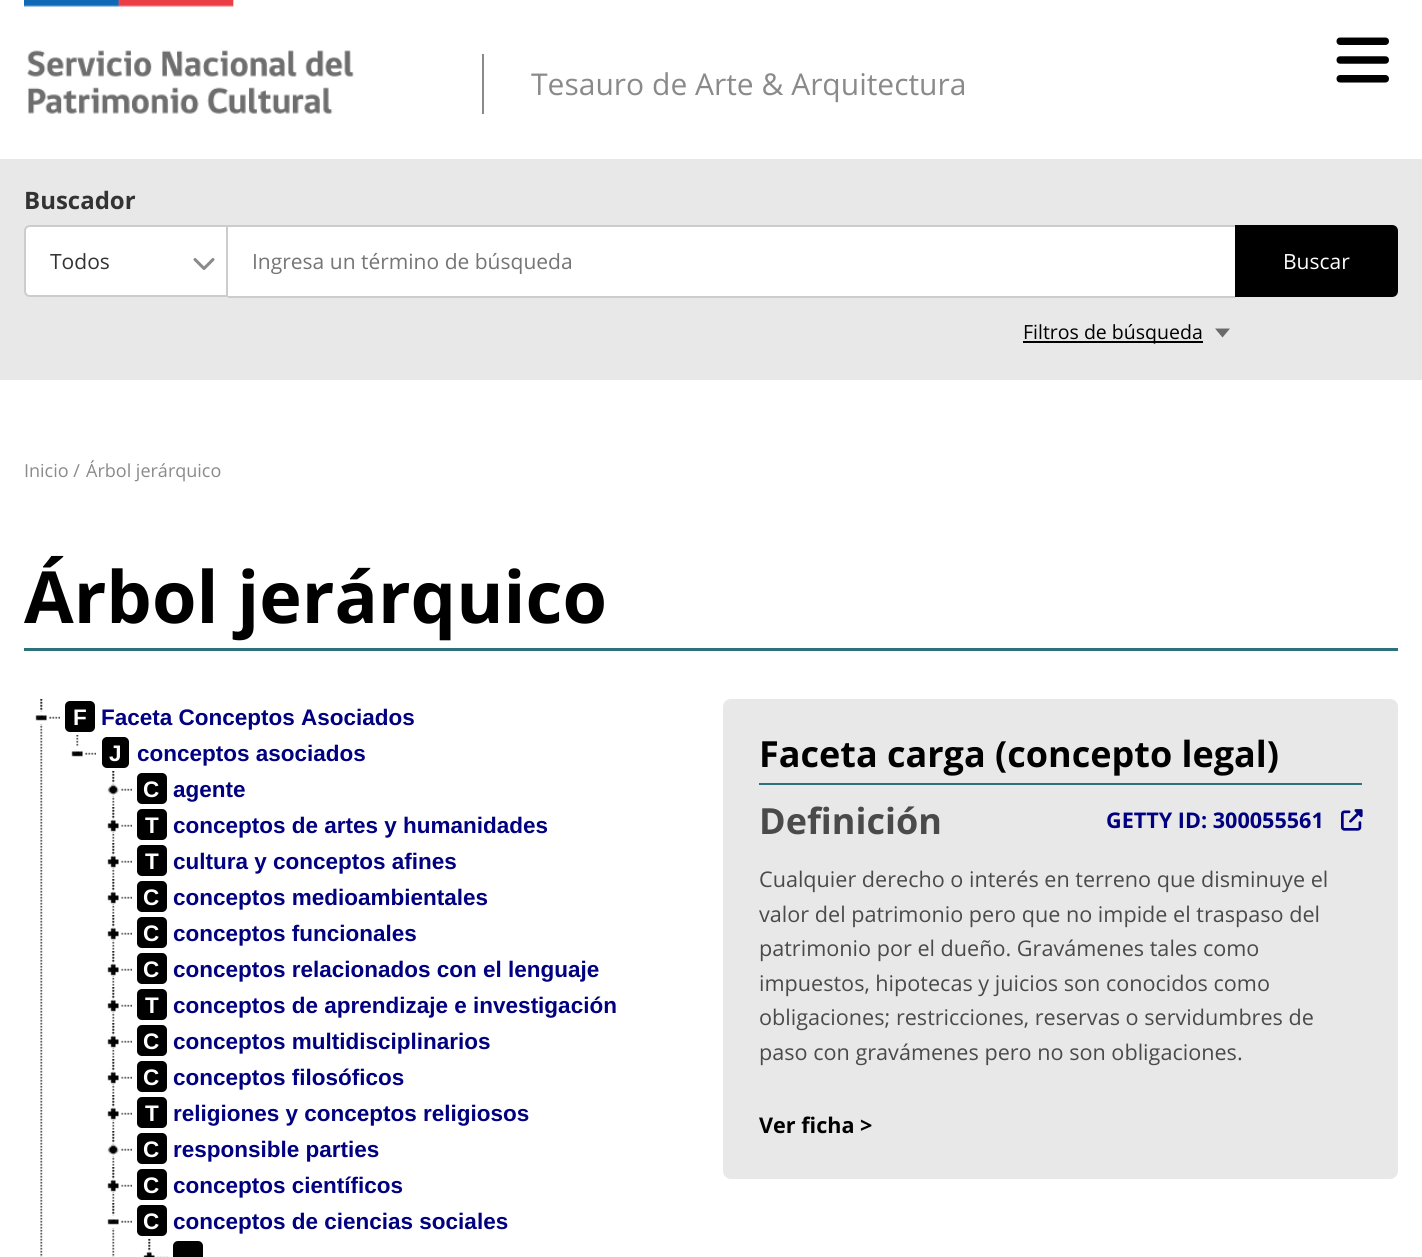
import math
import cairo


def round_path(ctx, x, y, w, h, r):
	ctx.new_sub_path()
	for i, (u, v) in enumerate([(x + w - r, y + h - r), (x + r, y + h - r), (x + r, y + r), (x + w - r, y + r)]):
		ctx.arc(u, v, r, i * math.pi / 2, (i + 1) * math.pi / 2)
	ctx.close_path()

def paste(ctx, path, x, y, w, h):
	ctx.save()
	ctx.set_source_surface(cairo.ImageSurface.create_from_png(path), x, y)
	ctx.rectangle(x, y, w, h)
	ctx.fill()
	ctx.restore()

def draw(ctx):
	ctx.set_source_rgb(1, 1, 1)
	ctx.paint()
	paste(ctx, 'media/2.png', 24, 0, 330, 114)
	ctx.set_source_rgb(0.541, 0.541, 0.541)
	ctx.rectangle(482, 54, 2, 60)
	ctx.fill()
	ctx.select_font_face('Open Sans')
	ctx.set_font_size(30)
	ctx.move_to(531, 95)
	ctx.show_text('Tesauro de Arte & Arquitectura')
	ctx.set_font_size(18)
	ctx.move_to(24, 477)
	ctx.show_text('Inicio /')
	ctx.move_to(86, 477)
	ctx.show_text('Árbol jerárquico')
	ctx.set_source_rgb(0.176, 0.443, 0.486)
	ctx.rectangle(24, 648, 1374, 3)
	ctx.fill()
	ctx.select_font_face('Open Sans', cairo.FONT_SLANT_NORMAL, cairo.FONT_WEIGHT_BOLD)
	ctx.set_font_size(72)
	ctx.set_source_rgb(0, 0, 0)
	ctx.move_to(24, 623)
	ctx.show_text('Árbol jerárquico')
	paste(ctx, 'media/4.png', 40, 699, 3, 558)
	paste(ctx, 'media/5.png', 35, 699, 25, 26)
	round_path(ctx, 65, 701, 30, 31, 5)
	ctx.fill()
	ctx.select_font_face('Liberation Sans', cairo.FONT_SLANT_NORMAL, cairo.FONT_WEIGHT_BOLD)
	ctx.set_font_size(22.5)
	ctx.set_source_rgb(1, 1, 1)
	ctx.move_to(73, 725)
	ctx.show_text('F')
	ctx.set_source_rgb(0, 0, 0.502)
	ctx.move_to(101, 725)
	ctx.show_text('Faceta Conceptos Asociados')
	paste(ctx, 'media/6.png', 71, 735, 25, 22)
	ctx.set_source_rgb(0, 0, 0)
	round_path(ctx, 102, 737, 27, 31, 5)
	ctx.fill()
	ctx.set_source_rgb(1, 1, 1)
	ctx.move_to(109, 761)
	ctx.show_text('J')
	ctx.set_source_rgb(0, 0, 0.502)
	ctx.move_to(137, 761)
	ctx.show_text('conceptos asociados')
	paste(ctx, 'media/7.png', 112, 771, 3, 35)
	paste(ctx, 'media/8.png', 107, 771, 25, 26)
	ctx.set_source_rgb(0, 0, 0)
	round_path(ctx, 137, 773, 30, 31, 5)
	ctx.fill()
	ctx.set_source_rgb(1, 1, 1)
	ctx.move_to(143, 797)
	ctx.show_text('C')
	ctx.set_source_rgb(0, 0, 0.502)
	ctx.move_to(173, 797)
	ctx.show_text('agente')
	paste(ctx, 'media/7.png', 112, 807, 3, 35)
	paste(ctx, 'media/9.png', 107, 807, 25, 26)
	ctx.set_source_rgb(0, 0, 0)
	round_path(ctx, 137, 809, 30, 31, 5)
	ctx.fill()
	ctx.set_source_rgb(1, 1, 1)
	ctx.move_to(145, 833)
	ctx.show_text('T')
	ctx.set_source_rgb(0, 0, 0.502)
	ctx.move_to(173, 833)
	ctx.show_text('conceptos de artes y humanidades')
	paste(ctx, 'media/7.png', 112, 843, 3, 35)
	paste(ctx, 'media/9.png', 107, 843, 25, 26)
	ctx.set_source_rgb(0, 0, 0)
	round_path(ctx, 137, 845, 30, 31, 5)
	ctx.fill()
	ctx.set_source_rgb(1, 1, 1)
	ctx.move_to(145, 869)
	ctx.show_text('T')
	ctx.set_source_rgb(0, 0, 0.502)
	ctx.move_to(173, 869)
	ctx.show_text('cultura y conceptos afines')
	paste(ctx, 'media/7.png', 112, 879, 3, 35)
	paste(ctx, 'media/9.png', 107, 879, 25, 26)
	ctx.set_source_rgb(0, 0, 0)
	round_path(ctx, 137, 881, 30, 31, 5)
	ctx.fill()
	ctx.set_source_rgb(1, 1, 1)
	ctx.move_to(143, 905)
	ctx.show_text('C')
	ctx.set_source_rgb(0, 0, 0.502)
	ctx.move_to(173, 905)
	ctx.show_text('conceptos medioambientales')
	paste(ctx, 'media/7.png', 112, 915, 3, 35)
	paste(ctx, 'media/9.png', 107, 915, 25, 26)
	ctx.set_source_rgb(0, 0, 0)
	round_path(ctx, 137, 917, 30, 31, 5)
	ctx.fill()
	ctx.set_source_rgb(1, 1, 1)
	ctx.move_to(143, 941)
	ctx.show_text('C')
	ctx.set_source_rgb(0, 0, 0.502)
	ctx.move_to(173, 941)
	ctx.show_text('conceptos funcionales')
	paste(ctx, 'media/7.png', 112, 951, 3, 35)
	paste(ctx, 'media/9.png', 107, 951, 25, 26)
	ctx.set_source_rgb(0, 0, 0)
	round_path(ctx, 137, 953, 30, 31, 5)
	ctx.fill()
	ctx.set_source_rgb(1, 1, 1)
	ctx.move_to(143, 977)
	ctx.show_text('C')
	ctx.set_source_rgb(0, 0, 0.502)
	ctx.move_to(173, 977)
	ctx.show_text('conceptos relacionados con el lenguaje')
	paste(ctx, 'media/7.png', 112, 987, 3, 35)
	paste(ctx, 'media/9.png', 107, 987, 25, 26)
	ctx.set_source_rgb(0, 0, 0)
	round_path(ctx, 137, 989, 30, 31, 5)
	ctx.fill()
	ctx.set_source_rgb(1, 1, 1)
	ctx.move_to(145, 1013)
	ctx.show_text('T')
	ctx.set_source_rgb(0, 0, 0.502)
	ctx.move_to(173, 1013)
	ctx.show_text('conceptos de aprendizaje e investigación')
	paste(ctx, 'media/7.png', 112, 1023, 3, 35)
	paste(ctx, 'media/9.png', 107, 1023, 25, 26)
	ctx.set_source_rgb(0, 0, 0)
	round_path(ctx, 137, 1025, 30, 31, 5)
	ctx.fill()
	ctx.set_source_rgb(1, 1, 1)
	ctx.move_to(143, 1049)
	ctx.show_text('C')
	ctx.set_source_rgb(0, 0, 0.502)
	ctx.move_to(173, 1049)
	ctx.show_text('conceptos multidisciplinarios')
	paste(ctx, 'media/7.png', 112, 1059, 3, 35)
	paste(ctx, 'media/9.png', 107, 1059, 25, 26)
	ctx.set_source_rgb(0, 0, 0)
	round_path(ctx, 137, 1061, 30, 31, 5)
	ctx.fill()
	ctx.set_source_rgb(1, 1, 1)
	ctx.move_to(143, 1085)
	ctx.show_text('C')
	ctx.set_source_rgb(0, 0, 0.502)
	ctx.move_to(173, 1085)
	ctx.show_text('conceptos filosóficos')
	paste(ctx, 'media/7.png', 112, 1095, 3, 35)
	paste(ctx, 'media/9.png', 107, 1095, 25, 26)
	ctx.set_source_rgb(0, 0, 0)
	round_path(ctx, 137, 1097, 30, 31, 5)
	ctx.fill()
	ctx.set_source_rgb(1, 1, 1)
	ctx.move_to(145, 1121)
	ctx.show_text('T')
	ctx.set_source_rgb(0, 0, 0.502)
	ctx.move_to(173, 1121)
	ctx.show_text('religiones y conceptos religiosos')
	paste(ctx, 'media/7.png', 112, 1131, 3, 35)
	paste(ctx, 'media/8.png', 107, 1131, 25, 26)
	ctx.set_source_rgb(0, 0, 0)
	round_path(ctx, 137, 1133, 30, 31, 5)
	ctx.fill()
	ctx.set_source_rgb(1, 1, 1)
	ctx.move_to(143, 1157)
	ctx.show_text('C')
	ctx.set_source_rgb(0, 0, 0.502)
	ctx.move_to(173, 1157)
	ctx.show_text('responsible parties')
	paste(ctx, 'media/7.png', 112, 1167, 3, 35)
	paste(ctx, 'media/9.png', 107, 1167, 25, 26)
	ctx.set_source_rgb(0, 0, 0)
	round_path(ctx, 137, 1169, 30, 31, 5)
	ctx.fill()
	ctx.set_source_rgb(1, 1, 1)
	ctx.move_to(143, 1193)
	ctx.show_text('C')
	ctx.set_source_rgb(0, 0, 0.502)
	ctx.move_to(173, 1193)
	ctx.show_text('conceptos científicos')
	paste(ctx, 'media/10.png', 112, 1203, 3, 54)
	paste(ctx, 'media/5.png', 107, 1203, 25, 26)
	ctx.set_source_rgb(0, 0, 0)
	round_path(ctx, 137, 1205, 30, 31, 5)
	ctx.fill()
	ctx.set_source_rgb(1, 1, 1)
	ctx.move_to(143, 1229)
	ctx.show_text('C')
	ctx.set_source_rgb(0, 0, 0.502)
	ctx.move_to(173, 1229)
	ctx.show_text('conceptos de ciencias sociales')
	paste(ctx, 'media/11.png', 148, 1239, 3, 13)
	paste(ctx, 'media/12.png', 143, 1239, 25, 18)
	ctx.set_source_rgb(0, 0, 0)
	round_path(ctx, 173, 1241, 30, 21, 5)
	ctx.fill()
	ctx.save()
	ctx.rectangle(0, 159, 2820, 221)
	ctx.clip()
	ctx.rectangle(-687, -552, 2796, 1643)
	ctx.set_source_rgb(0.91, 0.91, 0.91)
	ctx.set_line_width(1422)
	ctx.stroke()
	ctx.restore()
	paste(ctx, 'media/1.png', 1336, 37, 53, 46)
	ctx.set_source_rgb(0.91, 0.91, 0.91)
	ctx.rectangle(24, 159, 1374, 221)
	ctx.fill()
	ctx.select_font_face('Open Sans', cairo.FONT_SLANT_NORMAL, cairo.FONT_WEIGHT_BOLD)
	ctx.set_font_size(24)
	ctx.set_source_rgb(0.2, 0.2, 0.2)
	ctx.move_to(24, 209)
	ctx.show_text('Buscador')
	ctx.set_source_rgb(1, 1, 1)
	ctx.new_path()
	ctx.move_to(30, 226)
	ctx.line_to(227, 226)
	ctx.line_to(227, 296)
	ctx.line_to(30, 296)
	ctx.curve_to(27, 296, 25, 294, 25, 291)
	ctx.line_to(25, 231)
	ctx.curve_to(25, 228, 27, 226, 30, 226)
	ctx.close_path()
	ctx.fill_preserve()
	ctx.set_source_rgb(0.8, 0.8, 0.8)
	ctx.stroke()
	ctx.select_font_face('Open Sans')
	ctx.set_font_size(21)
	ctx.set_source_rgb(0.2, 0.2, 0.2)
	ctx.move_to(50, 269)
	ctx.show_text('Todos')
	paste(ctx, 'media/3.png', 193, 258, 22, 12)
	ctx.set_source_rgb(1, 1, 1)
	ctx.rectangle(228, 227, 1007, 69)
	ctx.fill()
	ctx.set_source_rgb(0.8, 0.8, 0.8)
	ctx.rectangle(228, 225, 1007, 2)
	ctx.rectangle(228, 296, 1007, 2)
	ctx.fill()
	ctx.set_source_rgb(0.459, 0.459, 0.459)
	ctx.move_to(252, 269)
	ctx.show_text('Ingresa un término de búsqueda')
	ctx.set_source_rgb(0, 0, 0)
	ctx.new_path()
	ctx.move_to(1235, 225)
	ctx.line_to(1392, 225)
	ctx.curve_to(1395.5, 225, 1398, 227.5, 1398, 231)
	ctx.line_to(1398, 291)
	ctx.curve_to(1398, 294.5, 1395.5, 297, 1392, 297)
	ctx.line_to(1235, 297)
	ctx.close_path()
	ctx.fill()
	ctx.set_source_rgb(1, 1, 1)
	ctx.move_to(1283, 269)
	ctx.show_text('Buscar')
	ctx.set_source_rgb(0, 0, 0)
	ctx.rectangle(1023, 341, 180, 2)
	ctx.fill()
	ctx.set_font_size(19.5)
	ctx.move_to(1023, 339)
	ctx.show_text('Filtros de búsqueda')
	ctx.set_source_rgb(0.416, 0.416, 0.416)
	ctx.new_path()
	ctx.move_to(1215, 328.5)
	ctx.line_to(1230, 328.5)
	ctx.line_to(1222.5, 337.5)
	ctx.close_path()
	ctx.fill()
	ctx.set_source_rgb(0.91, 0.91, 0.91)
	round_path(ctx, 723, 699, 675, 480, 8)
	ctx.fill()
	ctx.set_source_rgb(0.176, 0.443, 0.486)
	ctx.rectangle(759, 783, 603, 2)
	ctx.fill()
	ctx.select_font_face('Open Sans', cairo.FONT_SLANT_NORMAL, cairo.FONT_WEIGHT_BOLD)
	ctx.set_font_size(36)
	ctx.set_source_rgb(0, 0, 0)
	ctx.move_to(759, 767)
	ctx.show_text('Faceta carga (concepto legal)')
	ctx.set_source_rgb(0.29, 0.29, 0.29)
	ctx.move_to(759, 834)
	ctx.show_text('Definición')
	ctx.select_font_face('Open Sans')
	ctx.set_font_size(21.6)
	for x, y, s in [
		(759, 887, 'Cualquier derecho o interés en terreno que disminuye el'),
		(759, 922, 'valor del patrimonio pero que no impide el traspaso del'),
		(759, 956, 'patrimonio por el dueño. Gravámenes tales como'),
		(759, 991, 'impuestos, hipotecas y juicios son conocidos como'),
		(759, 1025, 'obligaciones; restricciones, reservas o servidumbres de'),
		(759, 1060, 'paso con gravámenes pero no son obligaciones.'),
	]:
		ctx.move_to(x, y)
		ctx.show_text(s)
	ctx.select_font_face('Open Sans', cairo.FONT_SLANT_NORMAL, cairo.FONT_WEIGHT_BOLD)
	ctx.set_source_rgb(0, 0, 0.502)
	ctx.move_to(1106, 828)
	ctx.show_text('GETTY ID: 300055561')
	paste(ctx, 'media/13.png', 1341, 809, 22, 22)
	ctx.set_source_rgb(0, 0, 0)
	ctx.move_to(759, 1133)
	ctx.show_text('Ver ficha')
	ctx.move_to(860, 1133)
	ctx.show_text('>')


surface = cairo.ImageSurface(cairo.FORMAT_RGB24, 1422, 1257)
ctx = cairo.Context(surface)
options = cairo.FontOptions()
options.set_hint_metrics(cairo.HINT_METRICS_OFF)
options.set_hint_style(cairo.HINT_STYLE_NONE)
ctx.set_font_options(options)
ctx.set_miter_limit(4)
draw(ctx)
surface.write_to_png('image.png')
